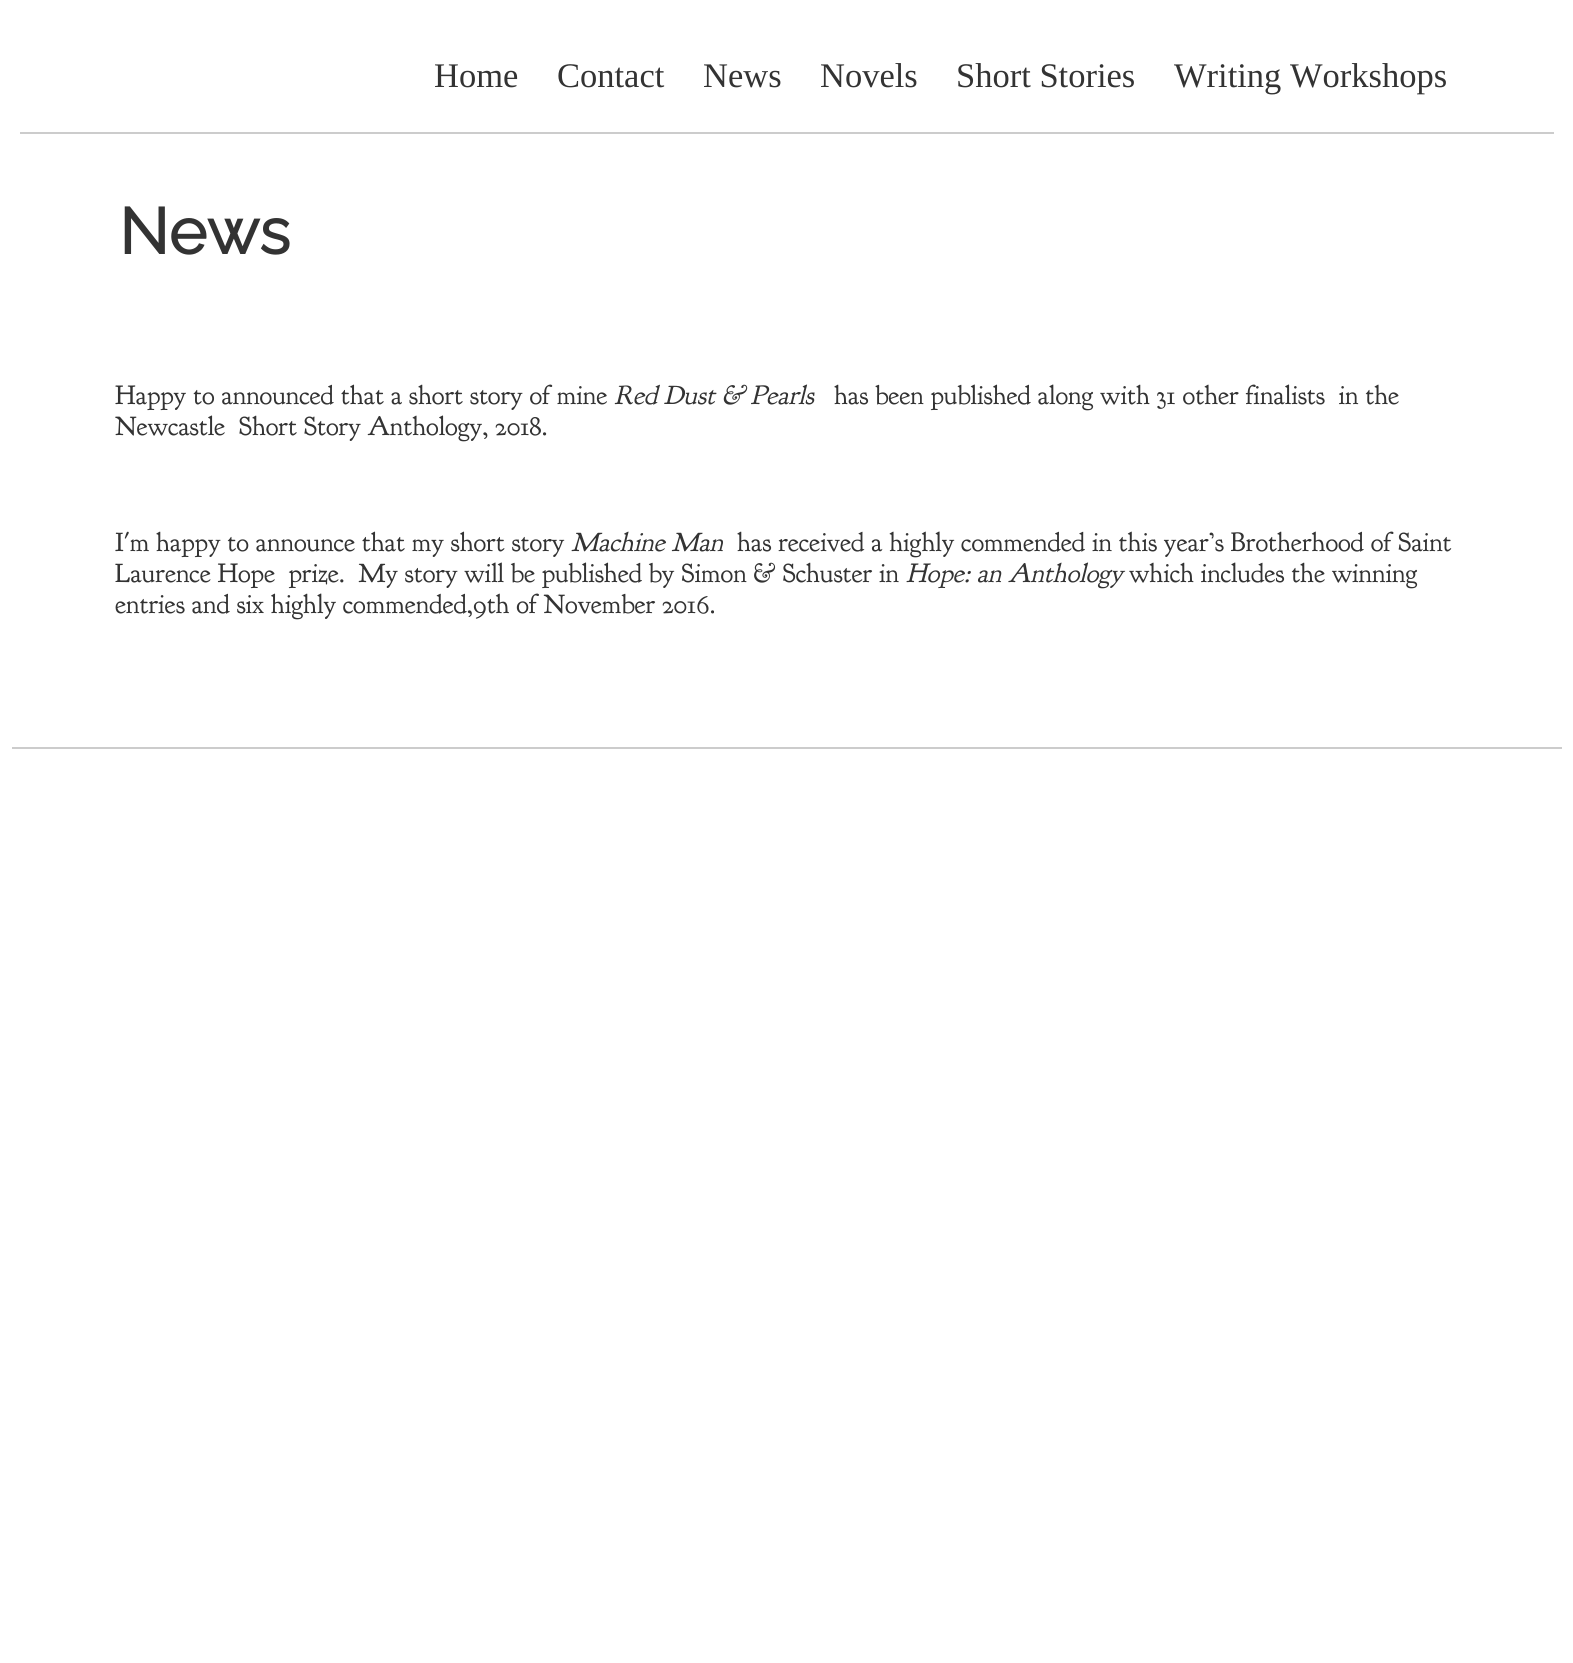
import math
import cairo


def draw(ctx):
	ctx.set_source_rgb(1, 1, 1)
	ctx.paint()
	ctx.set_source_rgb(0.8, 0.8, 0.8)
	ctx.rectangle(20, 132, 1534, 2)
	ctx.fill()
	ctx.select_font_face('Liberation Serif')
	ctx.set_font_size(34.5)
	ctx.set_source_rgb(0.2, 0.2, 0.2)
	for x, y, s in [
		(434, 87, 'Home'),
		(557, 87, 'Contact'),
		(703, 87, 'News'),
		(820, 87, 'Novels'),
		(956, 87, 'Short Stories'),
		(1174, 87, 'Writing Workshops'),
	]:
		ctx.move_to(x, y)
		ctx.show_text(s)
	ctx.select_font_face('Raleway', cairo.FONT_SLANT_NORMAL, cairo.FONT_WEIGHT_BOLD)
	ctx.set_font_size(64.5)
	ctx.move_to(119, 254)
	ctx.show_text('News')
	ctx.select_font_face('Goudy Bookletter 1911')
	ctx.set_font_size(27)
	ctx.move_to(115, 404)
	ctx.show_text('Happy to announced that a short story of mine')
	ctx.select_font_face('Goudy Bookletter 1911', cairo.FONT_SLANT_ITALIC)
	ctx.move_to(614, 404)
	ctx.show_text('Red Dust & Pearls')
	ctx.select_font_face('Goudy Bookletter 1911')
	for x, y, s in [
		(834, 404, 'has been published along with 31 other finalists  in the'),
		(115, 435, 'Newcastle  Short Story Anthology, 2018.'),
		(115, 551, 'I\'m happy to announce that my short story'),
	]:
		ctx.move_to(x, y)
		ctx.show_text(s)
	ctx.select_font_face('Goudy Bookletter 1911', cairo.FONT_SLANT_ITALIC)
	ctx.move_to(571, 551)
	ctx.show_text('Machine Man')
	ctx.select_font_face('Goudy Bookletter 1911')
	ctx.move_to(737, 551)
	ctx.show_text('has received a highly commended in this year’s Brotherhood of Saint')
	ctx.move_to(115, 582)
	ctx.show_text('Laurence Hope  prize.  My story will be published by Simon & Schuster in')
	ctx.select_font_face('Goudy Bookletter 1911', cairo.FONT_SLANT_ITALIC)
	ctx.move_to(906, 582)
	ctx.show_text('Hope: an Anthology')
	ctx.select_font_face('Goudy Bookletter 1911')
	ctx.move_to(1129, 582)
	ctx.show_text('which includes the winning')
	ctx.move_to(115, 613)
	ctx.show_text('entries and six highly commended,9th of November 2016.')
	ctx.set_source_rgb(0.8, 0.8, 0.8)
	ctx.rectangle(12, 747, 1550, 2)
	ctx.fill()


surface = cairo.ImageSurface(cairo.FORMAT_RGB24, 1573, 1663)
ctx = cairo.Context(surface)
options = cairo.FontOptions()
options.set_hint_metrics(cairo.HINT_METRICS_OFF)
options.set_hint_style(cairo.HINT_STYLE_NONE)
ctx.set_font_options(options)
ctx.set_miter_limit(4)
draw(ctx)
surface.write_to_png('image.png')
